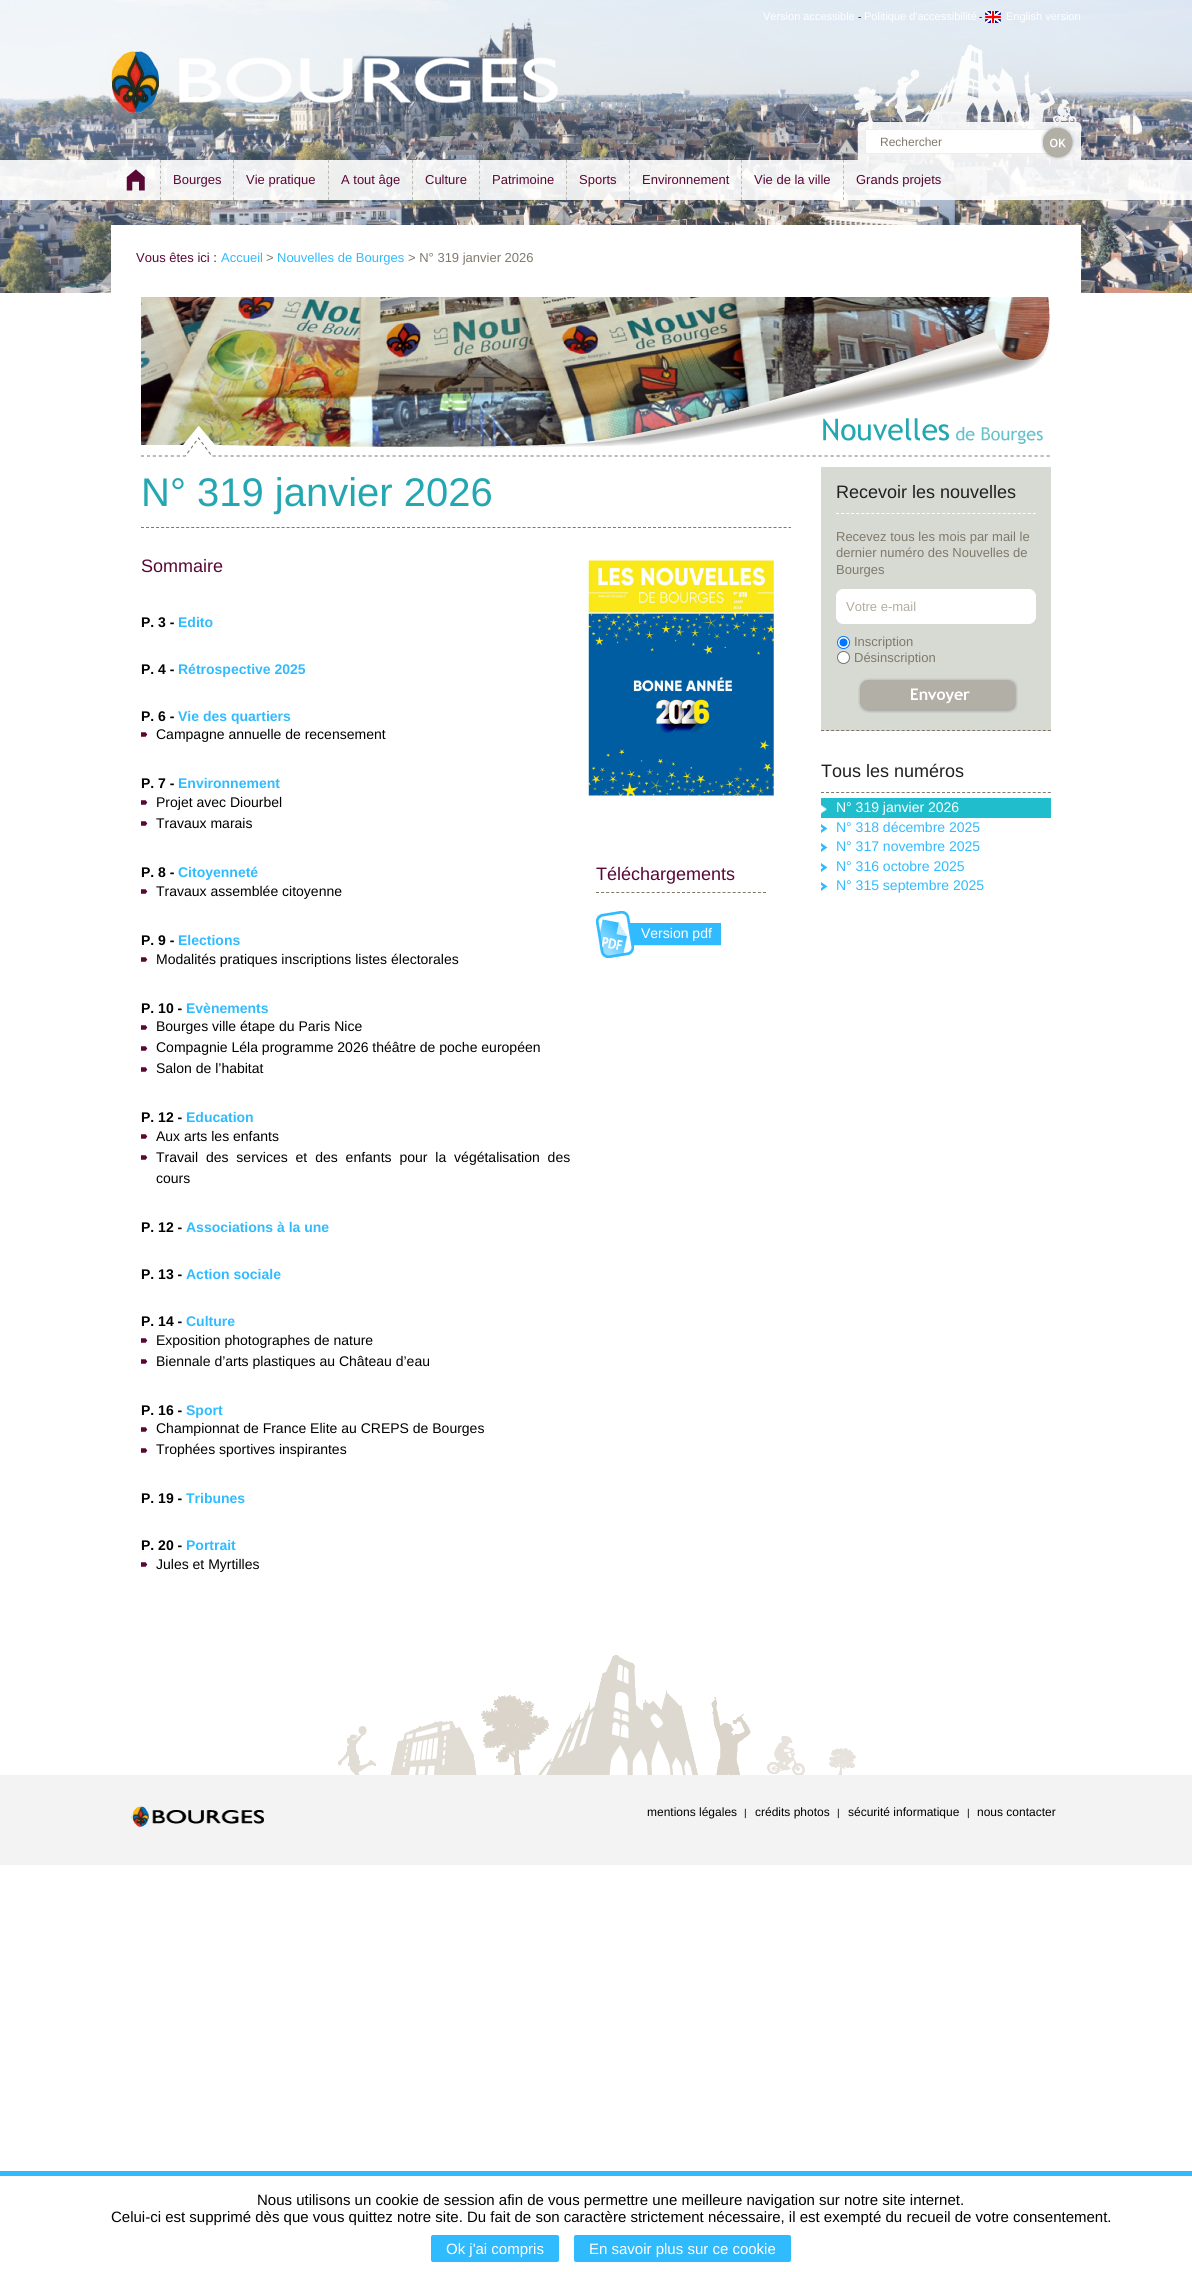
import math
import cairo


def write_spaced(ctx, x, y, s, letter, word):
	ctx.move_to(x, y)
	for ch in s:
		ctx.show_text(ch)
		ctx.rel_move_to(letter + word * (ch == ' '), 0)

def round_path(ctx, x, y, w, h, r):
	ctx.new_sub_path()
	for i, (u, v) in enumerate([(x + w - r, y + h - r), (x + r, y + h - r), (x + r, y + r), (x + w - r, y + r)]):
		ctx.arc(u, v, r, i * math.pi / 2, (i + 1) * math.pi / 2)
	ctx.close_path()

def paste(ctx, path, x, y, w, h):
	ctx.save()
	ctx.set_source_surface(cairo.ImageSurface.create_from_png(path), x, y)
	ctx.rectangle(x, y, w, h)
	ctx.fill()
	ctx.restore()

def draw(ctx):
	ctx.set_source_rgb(1, 1, 1)
	ctx.paint()
	paste(ctx, 'media/1.png', 0, 0, 1192, 293)
	ctx.select_font_face('Liberation Sans')
	ctx.set_font_size(11)
	ctx.set_source_rgb(1, 1, 1)
	ctx.move_to(763, 20)
	ctx.show_text('Version accessible')
	ctx.set_font_size(10)
	ctx.set_source_rgb(0, 0, 0)
	ctx.move_to(858, 20)
	ctx.show_text('-')
	ctx.set_font_size(11)
	ctx.set_source_rgb(1, 1, 1)
	ctx.move_to(864, 20)
	ctx.show_text('Politique d\'accessibilité')
	ctx.set_font_size(10)
	ctx.set_source_rgb(0, 0, 0)
	ctx.move_to(979, 20)
	ctx.show_text('-')
	paste(ctx, 'media/2.png', 985, 11, 16, 12)
	ctx.set_font_size(11)
	ctx.set_source_rgb(1, 1, 1)
	ctx.move_to(1006, 20)
	ctx.show_text('English version')
	paste(ctx, 'media/3.png', 111, 51, 48, 62)
	paste(ctx, 'media/4.png', 179, 57, 379, 46)
	paste(ctx, 'media/5.png', 853, 44, 228, 116)
	ctx.set_font_size(12)
	ctx.set_source_rgb(0.498, 0.475, 0.42)
	ctx.move_to(880, 146)
	ctx.show_text('Rechercher')
	paste(ctx, 'media/6.png', 1041, 126, 34, 34)
	ctx.set_source_rgba(1, 1, 1, 0.9)
	ctx.rectangle(0, 160, 1192, 40)
	ctx.fill()
	paste(ctx, 'media/7.png', 126, 169, 19, 22)
	ctx.new_path()
	ctx.move_to(160.5, 160)
	ctx.line_to(160.5, 200)
	ctx.set_source_rgb(0.745, 0.733, 0.706)
	ctx.set_line_width(1)
	ctx.set_dash([3, 2.29])
	ctx.stroke()
	ctx.set_font_size(13)
	ctx.set_source_rgb(0.349, 0.031, 0.208)
	ctx.move_to(173, 184)
	ctx.show_text('Bourges')
	ctx.new_path()
	ctx.move_to(233.5, 160)
	ctx.line_to(233.5, 200)
	ctx.set_source_rgb(0.745, 0.733, 0.706)
	ctx.stroke()
	ctx.set_source_rgb(0.349, 0.031, 0.208)
	ctx.move_to(246, 184)
	ctx.show_text('Vie pratique')
	ctx.new_path()
	ctx.move_to(328.5, 160)
	ctx.line_to(328.5, 200)
	ctx.set_source_rgb(0.745, 0.733, 0.706)
	ctx.stroke()
	ctx.set_source_rgb(0.349, 0.031, 0.208)
	ctx.move_to(341, 184)
	ctx.show_text('A tout âge')
	ctx.new_path()
	ctx.move_to(412.5, 160)
	ctx.line_to(412.5, 200)
	ctx.set_source_rgb(0.745, 0.733, 0.706)
	ctx.stroke()
	ctx.set_source_rgb(0.349, 0.031, 0.208)
	ctx.move_to(425, 184)
	ctx.show_text('Culture')
	ctx.new_path()
	ctx.move_to(479.5, 160)
	ctx.line_to(479.5, 200)
	ctx.set_source_rgb(0.745, 0.733, 0.706)
	ctx.stroke()
	ctx.set_source_rgb(0.349, 0.031, 0.208)
	ctx.move_to(492, 184)
	ctx.show_text('Patrimoine')
	ctx.new_path()
	ctx.move_to(566.5, 160)
	ctx.line_to(566.5, 200)
	ctx.set_source_rgb(0.745, 0.733, 0.706)
	ctx.stroke()
	ctx.set_source_rgb(0.349, 0.031, 0.208)
	ctx.move_to(579, 184)
	ctx.show_text('Sports')
	ctx.new_path()
	ctx.move_to(629.5, 160)
	ctx.line_to(629.5, 200)
	ctx.set_source_rgb(0.745, 0.733, 0.706)
	ctx.stroke()
	ctx.set_source_rgb(0.349, 0.031, 0.208)
	ctx.move_to(642, 184)
	ctx.show_text('Environnement')
	ctx.new_path()
	ctx.move_to(741.5, 160)
	ctx.line_to(741.5, 200)
	ctx.set_source_rgb(0.745, 0.733, 0.706)
	ctx.stroke()
	ctx.set_source_rgb(0.349, 0.031, 0.208)
	ctx.move_to(754, 184)
	ctx.show_text('Vie de la ville')
	ctx.new_path()
	ctx.move_to(843.5, 160)
	ctx.line_to(843.5, 200)
	ctx.set_source_rgb(0.745, 0.733, 0.706)
	ctx.stroke()
	ctx.set_source_rgb(0.349, 0.031, 0.208)
	ctx.move_to(856, 184)
	ctx.show_text('Grands projets')
	ctx.set_source_rgb(1, 1, 1)
	ctx.rectangle(111, 225, 970, 68)
	ctx.fill()
	ctx.set_source_rgb(0.349, 0.031, 0.208)
	ctx.move_to(136, 262)
	ctx.show_text('Vous êtes ici :')
	ctx.set_source_rgb(0.188, 0.733, 1)
	ctx.move_to(221, 262)
	ctx.show_text('Accueil')
	ctx.set_source_rgb(0.498, 0.475, 0.42)
	ctx.move_to(266, 262)
	ctx.show_text('>')
	ctx.set_source_rgb(0.188, 0.733, 1)
	ctx.move_to(277, 262)
	ctx.show_text('Nouvelles de Bourges')
	ctx.set_source_rgb(0.498, 0.475, 0.42)
	ctx.move_to(408, 262)
	ctx.show_text('> N° 319 janvier 2026')
	paste(ctx, 'media/8.png', 141, 297, 909, 160)
	ctx.new_path()
	ctx.move_to(141, 527.5)
	ctx.line_to(791, 527.5)
	ctx.set_dash([3, 2.02])
	ctx.stroke()
	ctx.set_font_size(40)
	ctx.set_source_rgb(0.145, 0.655, 0.698)
	ctx.move_to(141, 506)
	ctx.show_text('N° 319 janvier 2026')
	ctx.set_font_size(18)
	ctx.set_source_rgb(0.349, 0.031, 0.208)
	ctx.move_to(141, 572)
	ctx.show_text('Sommaire')
	ctx.select_font_face('Liberation Sans', cairo.FONT_SLANT_NORMAL, cairo.FONT_WEIGHT_BOLD)
	ctx.set_font_size(14)
	ctx.set_source_rgb(0, 0, 0)
	ctx.move_to(141, 627)
	ctx.show_text('P. 3 -')
	ctx.set_source_rgb(0.188, 0.733, 1)
	ctx.move_to(178, 627)
	ctx.show_text('Edito')
	ctx.set_source_rgb(0, 0, 0)
	ctx.move_to(141, 674)
	ctx.show_text('P. 4 -')
	ctx.set_source_rgb(0.188, 0.733, 1)
	ctx.move_to(178, 674)
	ctx.show_text('Rétrospective 2025')
	ctx.set_source_rgb(0, 0, 0)
	ctx.move_to(141, 721)
	ctx.show_text('P. 6 -')
	ctx.set_source_rgb(0.188, 0.733, 1)
	ctx.move_to(178, 721)
	ctx.show_text('Vie des quartiers')
	paste(ctx, 'media/9.png', 141, 732, 7, 5)
	ctx.select_font_face('Liberation Sans')
	ctx.set_source_rgb(0, 0, 0)
	ctx.move_to(156, 739)
	ctx.show_text('Campagne annuelle de recensement')
	ctx.select_font_face('Liberation Sans', cairo.FONT_SLANT_NORMAL, cairo.FONT_WEIGHT_BOLD)
	ctx.move_to(141, 788)
	ctx.show_text('P. 7 -')
	ctx.set_source_rgb(0.188, 0.733, 1)
	ctx.move_to(178, 788)
	ctx.show_text('Environnement')
	paste(ctx, 'media/9.png', 141, 800, 7, 5)
	ctx.select_font_face('Liberation Sans')
	ctx.set_source_rgb(0, 0, 0)
	ctx.move_to(156, 807)
	ctx.show_text('Projet avec Diourbel')
	paste(ctx, 'media/9.png', 141, 821, 7, 5)
	ctx.move_to(156, 828)
	ctx.show_text('Travaux marais')
	ctx.select_font_face('Liberation Sans', cairo.FONT_SLANT_NORMAL, cairo.FONT_WEIGHT_BOLD)
	ctx.move_to(141, 877)
	ctx.show_text('P. 8 -')
	ctx.set_source_rgb(0.188, 0.733, 1)
	ctx.move_to(178, 877)
	ctx.show_text('Citoyenneté')
	paste(ctx, 'media/9.png', 141, 889, 7, 5)
	ctx.select_font_face('Liberation Sans')
	ctx.set_source_rgb(0, 0, 0)
	ctx.move_to(156, 896)
	ctx.show_text('Travaux assemblée citoyenne')
	ctx.select_font_face('Liberation Sans', cairo.FONT_SLANT_NORMAL, cairo.FONT_WEIGHT_BOLD)
	ctx.move_to(141, 945)
	ctx.show_text('P. 9 -')
	ctx.set_source_rgb(0.188, 0.733, 1)
	ctx.move_to(178, 945)
	ctx.show_text('Elections')
	paste(ctx, 'media/9.png', 141, 957, 7, 5)
	ctx.select_font_face('Liberation Sans')
	ctx.set_source_rgb(0, 0, 0)
	ctx.move_to(156, 964)
	ctx.show_text('Modalités pratiques inscriptions listes électorales')
	ctx.select_font_face('Liberation Sans', cairo.FONT_SLANT_NORMAL, cairo.FONT_WEIGHT_BOLD)
	ctx.move_to(141, 1013)
	ctx.show_text('P. 10 -')
	ctx.set_source_rgb(0.188, 0.733, 1)
	ctx.move_to(186, 1013)
	ctx.show_text('Evènements')
	paste(ctx, 'media/9.png', 141, 1025, 7, 5)
	ctx.select_font_face('Liberation Sans')
	ctx.set_source_rgb(0, 0, 0)
	ctx.move_to(156, 1031)
	ctx.show_text('Bourges ville étape du Paris Nice')
	paste(ctx, 'media/9.png', 141, 1046, 7, 5)
	ctx.move_to(156, 1052)
	ctx.show_text('Compagnie Léla programme 2026 théâtre de poche européen')
	paste(ctx, 'media/9.png', 141, 1067, 7, 5)
	ctx.move_to(156, 1073)
	ctx.show_text('Salon de l’habitat')
	ctx.select_font_face('Liberation Sans', cairo.FONT_SLANT_NORMAL, cairo.FONT_WEIGHT_BOLD)
	ctx.move_to(141, 1122)
	ctx.show_text('P. 12 -')
	ctx.set_source_rgb(0.188, 0.733, 1)
	ctx.move_to(186, 1122)
	ctx.show_text('Education')
	paste(ctx, 'media/9.png', 141, 1134, 7, 5)
	ctx.select_font_face('Liberation Sans')
	ctx.set_source_rgb(0, 0, 0)
	ctx.move_to(156, 1141)
	ctx.show_text('Aux arts les enfants')
	paste(ctx, 'media/9.png', 141, 1155, 7, 5)
	write_spaced(ctx, 156, 1162, 'Travail des services et des enfants pour la végétalisation des', 0, 4)
	ctx.move_to(156, 1183)
	ctx.show_text('cours')
	ctx.select_font_face('Liberation Sans', cairo.FONT_SLANT_NORMAL, cairo.FONT_WEIGHT_BOLD)
	ctx.move_to(141, 1232)
	ctx.show_text('P. 12 -')
	ctx.set_source_rgb(0.188, 0.733, 1)
	ctx.move_to(186, 1232)
	ctx.show_text('Associations à la une')
	ctx.set_source_rgb(0, 0, 0)
	ctx.move_to(141, 1279)
	ctx.show_text('P. 13 -')
	ctx.set_source_rgb(0.188, 0.733, 1)
	ctx.move_to(186, 1279)
	ctx.show_text('Action sociale')
	ctx.set_source_rgb(0, 0, 0)
	ctx.move_to(141, 1326)
	ctx.show_text('P. 14 -')
	ctx.set_source_rgb(0.188, 0.733, 1)
	ctx.move_to(186, 1326)
	ctx.show_text('Culture')
	paste(ctx, 'media/9.png', 141, 1338, 7, 5)
	ctx.select_font_face('Liberation Sans')
	ctx.set_source_rgb(0, 0, 0)
	ctx.move_to(156, 1345)
	ctx.show_text('Exposition photographes de nature')
	paste(ctx, 'media/9.png', 141, 1359, 7, 5)
	ctx.move_to(156, 1366)
	ctx.show_text('Biennale d’arts plastiques au Château d’eau')
	ctx.select_font_face('Liberation Sans', cairo.FONT_SLANT_NORMAL, cairo.FONT_WEIGHT_BOLD)
	ctx.move_to(141, 1415)
	ctx.show_text('P. 16 -')
	ctx.set_source_rgb(0.188, 0.733, 1)
	ctx.move_to(186, 1415)
	ctx.show_text('Sport')
	paste(ctx, 'media/9.png', 141, 1427, 7, 5)
	ctx.select_font_face('Liberation Sans')
	ctx.set_source_rgb(0, 0, 0)
	ctx.move_to(156, 1433)
	ctx.show_text('Championnat de France Elite au CREPS de Bourges')
	paste(ctx, 'media/9.png', 141, 1448, 7, 5)
	ctx.move_to(156, 1454)
	ctx.show_text('Trophées sportives inspirantes')
	ctx.select_font_face('Liberation Sans', cairo.FONT_SLANT_NORMAL, cairo.FONT_WEIGHT_BOLD)
	ctx.move_to(141, 1503)
	ctx.show_text('P. 19 -')
	ctx.set_source_rgb(0.188, 0.733, 1)
	ctx.move_to(186, 1503)
	ctx.show_text('Tribunes')
	ctx.set_source_rgb(0, 0, 0)
	ctx.move_to(141, 1550)
	ctx.show_text('P. 20 -')
	ctx.set_source_rgb(0.188, 0.733, 1)
	ctx.move_to(186, 1550)
	ctx.show_text('Portrait')
	paste(ctx, 'media/9.png', 141, 1562, 7, 5)
	ctx.select_font_face('Liberation Sans')
	ctx.set_source_rgb(0, 0, 0)
	ctx.move_to(156, 1569)
	ctx.show_text('Jules et Myrtilles')
	paste(ctx, 'media/10.png', 586, 559, 188, 239)
	ctx.new_path()
	ctx.move_to(596, 892.5)
	ctx.line_to(766, 892.5)
	ctx.set_source_rgb(0.498, 0.475, 0.42)
	ctx.set_dash([3, 2.06])
	ctx.stroke()
	ctx.set_font_size(18)
	ctx.set_source_rgb(0.349, 0.031, 0.208)
	ctx.move_to(596, 880)
	ctx.show_text('Téléchargements')
	paste(ctx, 'media/11.png', 596, 911, 125, 47)
	ctx.set_font_size(14)
	ctx.set_source_rgb(1, 1, 1)
	ctx.move_to(641, 938)
	ctx.show_text('Version pdf')
	ctx.set_source_rgb(0.843, 0.851, 0.827)
	ctx.rectangle(821, 467, 230, 264)
	ctx.fill()
	ctx.new_path()
	ctx.move_to(821, 730.5)
	ctx.line_to(1051, 730.5)
	ctx.set_source_rgb(0.498, 0.475, 0.42)
	ctx.set_dash([3, 2.04])
	ctx.stroke()
	ctx.new_path()
	ctx.move_to(836, 513.5)
	ctx.line_to(1036, 513.5)
	ctx.set_source_rgb(1, 1, 1)
	ctx.set_dash([3, 2.05])
	ctx.stroke()
	ctx.set_font_size(18)
	ctx.set_source_rgb(0.125, 0.125, 0.125)
	ctx.move_to(836, 498)
	ctx.show_text('Recevoir les nouvelles')
	ctx.set_font_size(13)
	ctx.set_source_rgb(0.498, 0.475, 0.42)
	for x, y, s in [
		(836, 541, 'Recevez tous les mois par mail le'),
		(836, 557, 'dernier numéro des Nouvelles de'),
		(836, 574, 'Bourges'),
	]:
		ctx.move_to(x, y)
		ctx.show_text(s)
	paste(ctx, 'media/12.png', 836, 589, 200, 35)
	ctx.set_source_rgb(0.698, 0.675, 0.631)
	ctx.move_to(846, 611)
	ctx.show_text('Votre e-mail')
	ctx.set_source_rgb(1, 1, 1)
	ctx.new_path()
	ctx.arc(843.5, 642.5, 6, 0, 2 * math.pi)
	ctx.fill_preserve()
	ctx.set_source_rgb(0, 0.459, 1)
	ctx.set_dash([])
	ctx.stroke()
	ctx.arc(843.5, 642.5, 4, 0, 2 * math.pi)
	ctx.fill()
	ctx.set_source_rgb(0.498, 0.475, 0.42)
	ctx.move_to(854, 646)
	ctx.show_text('Inscription')
	ctx.set_source_rgb(1, 1, 1)
	ctx.new_path()
	ctx.arc(843.5, 657.5, 6, 0, 2 * math.pi)
	ctx.fill_preserve()
	ctx.set_source_rgb(0.463, 0.463, 0.463)
	ctx.stroke()
	ctx.set_source_rgb(0.498, 0.475, 0.42)
	ctx.move_to(854, 662)
	ctx.show_text('Désinscription')
	paste(ctx, 'media/13.png', 858, 678, 160, 35)
	ctx.new_path()
	ctx.move_to(821, 792.5)
	ctx.line_to(1051, 792.5)
	ctx.set_dash([3, 2.04])
	ctx.stroke()
	ctx.set_font_size(18)
	ctx.set_source_rgb(0.125, 0.125, 0.125)
	ctx.move_to(821, 777)
	ctx.show_text('Tous les numéros')
	ctx.set_source_rgb(0.125, 0.745, 0.8)
	ctx.rectangle(821, 798, 230, 20)
	ctx.fill()
	paste(ctx, 'media/14.png', 821, 805, 6, 9)
	ctx.set_font_size(14)
	ctx.set_source_rgb(1, 1, 1)
	ctx.move_to(836, 812)
	ctx.show_text('N° 319 janvier 2026')
	paste(ctx, 'media/15.png', 821, 824, 7, 9)
	ctx.set_source_rgb(0.188, 0.733, 1)
	ctx.move_to(836, 832)
	ctx.show_text('N° 318 décembre 2025')
	paste(ctx, 'media/15.png', 821, 843, 7, 9)
	ctx.move_to(836, 851)
	ctx.show_text('N° 317 novembre 2025')
	paste(ctx, 'media/15.png', 821, 863, 7, 9)
	ctx.move_to(836, 871)
	ctx.show_text('N° 316 octobre 2025')
	paste(ctx, 'media/15.png', 821, 882, 7, 9)
	ctx.move_to(836, 890)
	ctx.show_text('N° 315 septembre 2025')
	paste(ctx, 'media/16.png', 338, 1655, 518, 120)
	ctx.set_source_rgb(0.953, 0.953, 0.953)
	ctx.rectangle(0, 1775, 1192, 90)
	ctx.fill()
	paste(ctx, 'media/17.png', 131, 1806, 133, 21)
	ctx.set_font_size(12)
	ctx.set_source_rgb(0, 0, 0)
	ctx.move_to(647, 1816)
	ctx.show_text('mentions légales')
	ctx.set_font_size(10)
	ctx.move_to(744, 1816)
	ctx.show_text('|')
	ctx.set_font_size(12)
	ctx.move_to(755, 1816)
	ctx.show_text('crédits photos')
	ctx.set_font_size(10)
	ctx.move_to(837, 1816)
	ctx.show_text('|')
	ctx.set_font_size(12)
	ctx.move_to(848, 1816)
	ctx.show_text('sécurité informatique')
	ctx.set_font_size(10)
	ctx.move_to(967, 1816)
	ctx.show_text('|')
	ctx.set_font_size(12)
	ctx.move_to(977, 1816)
	ctx.show_text('nous contacter')
	ctx.set_source_rgb(0.188, 0.733, 1)
	ctx.rectangle(0, 2171, 1192, 5)
	ctx.fill()
	ctx.set_font_size(15)
	ctx.set_source_rgb(0, 0, 0)
	ctx.move_to(257, 2205)
	ctx.show_text('Nous utilisons un cookie de session afin de vous permettre une meilleure navigation sur notre site internet.')
	ctx.move_to(111, 2222)
	ctx.show_text('Celui-ci est supprimé dès que vous quittez notre site. Du fait de son caractère strictement nécessaire, il est exempté du recueil de votre consentement.')
	ctx.set_source_rgb(0.188, 0.733, 1)
	round_path(ctx, 431, 2235, 128, 27, 2)
	ctx.fill()
	ctx.set_source_rgb(1, 1, 1)
	ctx.move_to(446, 2254)
	ctx.show_text('Ok j\'ai compris')
	ctx.set_source_rgb(0.188, 0.733, 1)
	round_path(ctx, 574, 2235, 217, 27, 2)
	ctx.fill()
	ctx.set_source_rgb(1, 1, 1)
	ctx.move_to(589, 2254)
	ctx.show_text('En savoir plus sur ce cookie')


surface = cairo.ImageSurface(cairo.FORMAT_RGB24, 1192, 2272)
ctx = cairo.Context(surface)
options = cairo.FontOptions()
options.set_hint_metrics(cairo.HINT_METRICS_OFF)
options.set_hint_style(cairo.HINT_STYLE_NONE)
ctx.set_font_options(options)
ctx.set_miter_limit(4)
draw(ctx)
surface.write_to_png('image.png')
